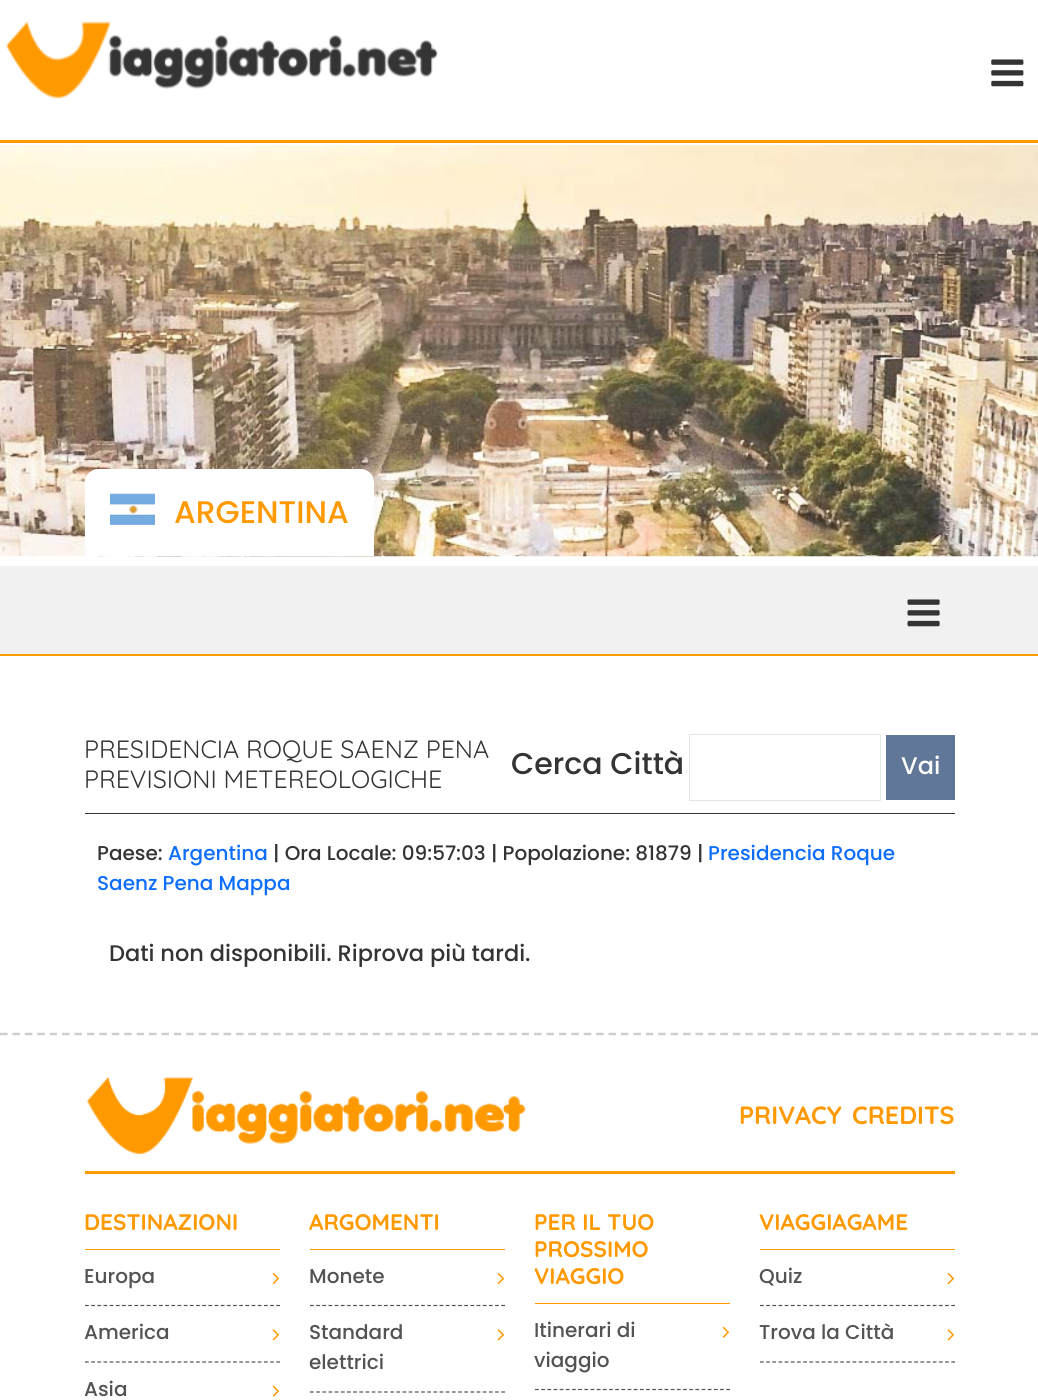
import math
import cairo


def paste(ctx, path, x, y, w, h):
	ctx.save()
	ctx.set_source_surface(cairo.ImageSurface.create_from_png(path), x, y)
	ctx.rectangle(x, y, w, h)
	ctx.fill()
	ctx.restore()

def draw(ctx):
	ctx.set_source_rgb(1, 1, 1)
	ctx.paint()
	ctx.set_source_rgb(1, 0.6, 0)
	ctx.rectangle(0, 140, 1038, 3)
	ctx.fill()
	paste(ctx, 'media/1.png', 6, 21, 432, 78)
	paste(ctx, 'media/2.png', 991, 59, 33, 28)
	paste(ctx, 'media/3.png', 0, 145, 1038, 412)
	ctx.set_source_rgb(1, 1, 1)
	ctx.new_path()
	ctx.move_to(98, 469)
	ctx.line_to(361, 469)
	ctx.curve_to(368, 469, 374, 475, 374, 482)
	ctx.line_to(374, 556)
	ctx.line_to(85, 556)
	ctx.line_to(85, 482)
	ctx.curve_to(85, 475, 91, 469, 98, 469)
	ctx.close_path()
	ctx.fill()
	paste(ctx, 'media/4.png', 110, 493, 45, 32)
	ctx.select_font_face('Poppins Medium')
	ctx.set_font_size(31.25)
	ctx.set_source_rgb(1, 0.6, 0)
	ctx.move_to(174, 523)
	ctx.show_text('ARGENTINA')
	ctx.set_source_rgb(0.945, 0.945, 0.945)
	ctx.rectangle(0, 566, 1038, 88)
	ctx.fill()
	ctx.set_source_rgb(1, 0.6, 0)
	ctx.rectangle(0, 654, 1038, 2)
	ctx.fill()
	paste(ctx, 'media/5.png', 907, 599, 33, 28)
	ctx.set_source_rgb(0.204, 0.204, 0.204)
	ctx.rectangle(85, 813, 870, 1)
	ctx.fill()
	ctx.select_font_face('Quicksand')
	ctx.set_font_size(25)
	ctx.move_to(84, 758)
	ctx.show_text('PRESIDENCIA ROQUE SAENZ PENA')
	ctx.move_to(84, 788)
	ctx.show_text('PREVISIONI METEREOLOGICHE')
	ctx.select_font_face('Poppins Medium')
	ctx.set_font_size(20)
	ctx.move_to(97, 860)
	ctx.show_text('Paese:')
	ctx.set_source_rgb(0.051, 0.431, 0.992)
	ctx.move_to(168, 860)
	ctx.show_text('Argentina')
	ctx.set_source_rgb(0.204, 0.204, 0.204)
	ctx.move_to(273, 860)
	ctx.show_text('| Ora Locale: 09:57:03 | Popolazione: 81879 |')
	ctx.set_source_rgb(0.051, 0.431, 0.992)
	ctx.move_to(708, 860)
	ctx.show_text('Presidencia Roque')
	ctx.move_to(97, 890)
	ctx.show_text('Saenz Pena Mappa')
	ctx.set_font_size(22.5)
	ctx.set_source_rgb(0.204, 0.204, 0.204)
	ctx.move_to(109, 961)
	ctx.show_text('Dati non disponibili. Riprova più tardi.')
	ctx.set_font_size(30)
	ctx.move_to(511, 774)
	ctx.show_text('Cerca Città')
	ctx.rectangle(689.5, 734.5, 191, 66)
	ctx.set_source_rgb(0.898, 0.898, 0.898)
	ctx.set_line_width(1)
	ctx.stroke()
	ctx.set_source_rgb(0.38, 0.467, 0.596)
	ctx.rectangle(886, 735, 69, 65)
	ctx.fill()
	ctx.set_font_size(24)
	ctx.set_source_rgb(1, 1, 1)
	ctx.move_to(901, 774)
	ctx.show_text('Vai')
	ctx.new_path()
	ctx.move_to(0, 1034)
	ctx.line_to(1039, 1034)
	ctx.set_source_rgb(0.808, 0.808, 0.808)
	ctx.set_line_width(2.5)
	ctx.set_dash([7.5, 4.92])
	ctx.stroke()
	ctx.set_source_rgb(1, 0.6, 0)
	ctx.rectangle(85, 1171, 870, 3)
	ctx.fill()
	paste(ctx, 'media/6.png', 87, 1077, 439, 77)
	ctx.select_font_face('Quicksand', cairo.FONT_SLANT_NORMAL, cairo.FONT_WEIGHT_BOLD)
	ctx.set_font_size(25)
	ctx.move_to(739, 1124)
	ctx.show_text('PRIVACY')
	ctx.move_to(852, 1124)
	ctx.show_text('CREDITS')
	ctx.rectangle(85, 1249, 195, 1)
	ctx.fill()
	ctx.set_font_size(22.5)
	ctx.move_to(84, 1230)
	ctx.show_text('DESTINAZIONI')
	ctx.new_path()
	ctx.move_to(85, 1305.5)
	ctx.line_to(280, 1305.5)
	ctx.set_source_rgb(0.325, 0.325, 0.325)
	ctx.set_line_width(1.2)
	ctx.set_dash([3.75, 2.42])
	ctx.stroke()
	ctx.select_font_face('Poppins Medium')
	ctx.set_font_size(20)
	ctx.move_to(84, 1283)
	ctx.show_text('Europa')
	paste(ctx, 'media/7.png', 272, 1273, 8, 12)
	ctx.new_path()
	ctx.move_to(85, 1362)
	ctx.line_to(280, 1362)
	ctx.stroke()
	ctx.move_to(84, 1339)
	ctx.show_text('America')
	paste(ctx, 'media/8.png', 272, 1329, 8, 12)
	ctx.move_to(84, 1396)
	ctx.show_text('Asia')
	paste(ctx, 'media/9.png', 272, 1385, 8, 12)
	ctx.set_source_rgb(1, 0.6, 0)
	ctx.rectangle(310, 1249, 195, 1)
	ctx.fill()
	ctx.select_font_face('Quicksand', cairo.FONT_SLANT_NORMAL, cairo.FONT_WEIGHT_BOLD)
	ctx.set_font_size(22.5)
	ctx.move_to(309, 1230)
	ctx.show_text('ARGOMENTI')
	ctx.new_path()
	ctx.move_to(310, 1305.5)
	ctx.line_to(505, 1305.5)
	ctx.set_source_rgb(0.325, 0.325, 0.325)
	ctx.stroke()
	ctx.select_font_face('Poppins Medium')
	ctx.set_font_size(20)
	ctx.move_to(309, 1283)
	ctx.show_text('Monete')
	paste(ctx, 'media/7.png', 497, 1273, 8, 12)
	ctx.new_path()
	ctx.move_to(310, 1392)
	ctx.line_to(505, 1392)
	ctx.stroke()
	ctx.move_to(309, 1339)
	ctx.show_text('Standard')
	paste(ctx, 'media/8.png', 497, 1329, 8, 12)
	ctx.move_to(309, 1369)
	ctx.show_text('elettrici')
	ctx.set_source_rgb(1, 0.6, 0)
	ctx.rectangle(535, 1303, 195, 1)
	ctx.fill()
	ctx.select_font_face('Quicksand', cairo.FONT_SLANT_NORMAL, cairo.FONT_WEIGHT_BOLD)
	ctx.set_font_size(22.5)
	for x, y, s in [
		(534, 1230, 'PER IL TUO'),
		(534, 1257, 'PROSSIMO'),
		(534, 1284, 'VIAGGIO'),
	]:
		ctx.move_to(x, y)
		ctx.show_text(s)
	ctx.new_path()
	ctx.move_to(535, 1389.5)
	ctx.line_to(730, 1389.5)
	ctx.set_source_rgb(0.325, 0.325, 0.325)
	ctx.stroke()
	ctx.select_font_face('Poppins Medium')
	ctx.set_font_size(20)
	ctx.move_to(534, 1337)
	ctx.show_text('Itinerari di')
	paste(ctx, 'media/10.png', 722, 1326, 8, 12)
	ctx.move_to(534, 1367)
	ctx.show_text('viaggio')
	ctx.set_source_rgb(1, 0.6, 0)
	ctx.rectangle(760, 1249, 195, 1)
	ctx.fill()
	ctx.select_font_face('Quicksand', cairo.FONT_SLANT_NORMAL, cairo.FONT_WEIGHT_BOLD)
	ctx.set_font_size(22.5)
	ctx.move_to(759, 1230)
	ctx.show_text('VIAGGIAGAME')
	ctx.new_path()
	ctx.move_to(760, 1305.5)
	ctx.line_to(955, 1305.5)
	ctx.set_source_rgb(0.325, 0.325, 0.325)
	ctx.stroke()
	ctx.select_font_face('Poppins Medium')
	ctx.set_font_size(20)
	ctx.move_to(759, 1283)
	ctx.show_text('Quiz')
	paste(ctx, 'media/7.png', 947, 1273, 8, 12)
	ctx.new_path()
	ctx.move_to(760, 1362)
	ctx.line_to(955, 1362)
	ctx.stroke()
	ctx.move_to(759, 1339)
	ctx.show_text('Trova la Città')
	paste(ctx, 'media/8.png', 947, 1329, 8, 12)


surface = cairo.ImageSurface(cairo.FORMAT_RGB24, 1038, 1400)
ctx = cairo.Context(surface)
options = cairo.FontOptions()
options.set_hint_metrics(cairo.HINT_METRICS_OFF)
options.set_hint_style(cairo.HINT_STYLE_NONE)
ctx.set_font_options(options)
ctx.set_miter_limit(4)
draw(ctx)
surface.write_to_png('image.png')
